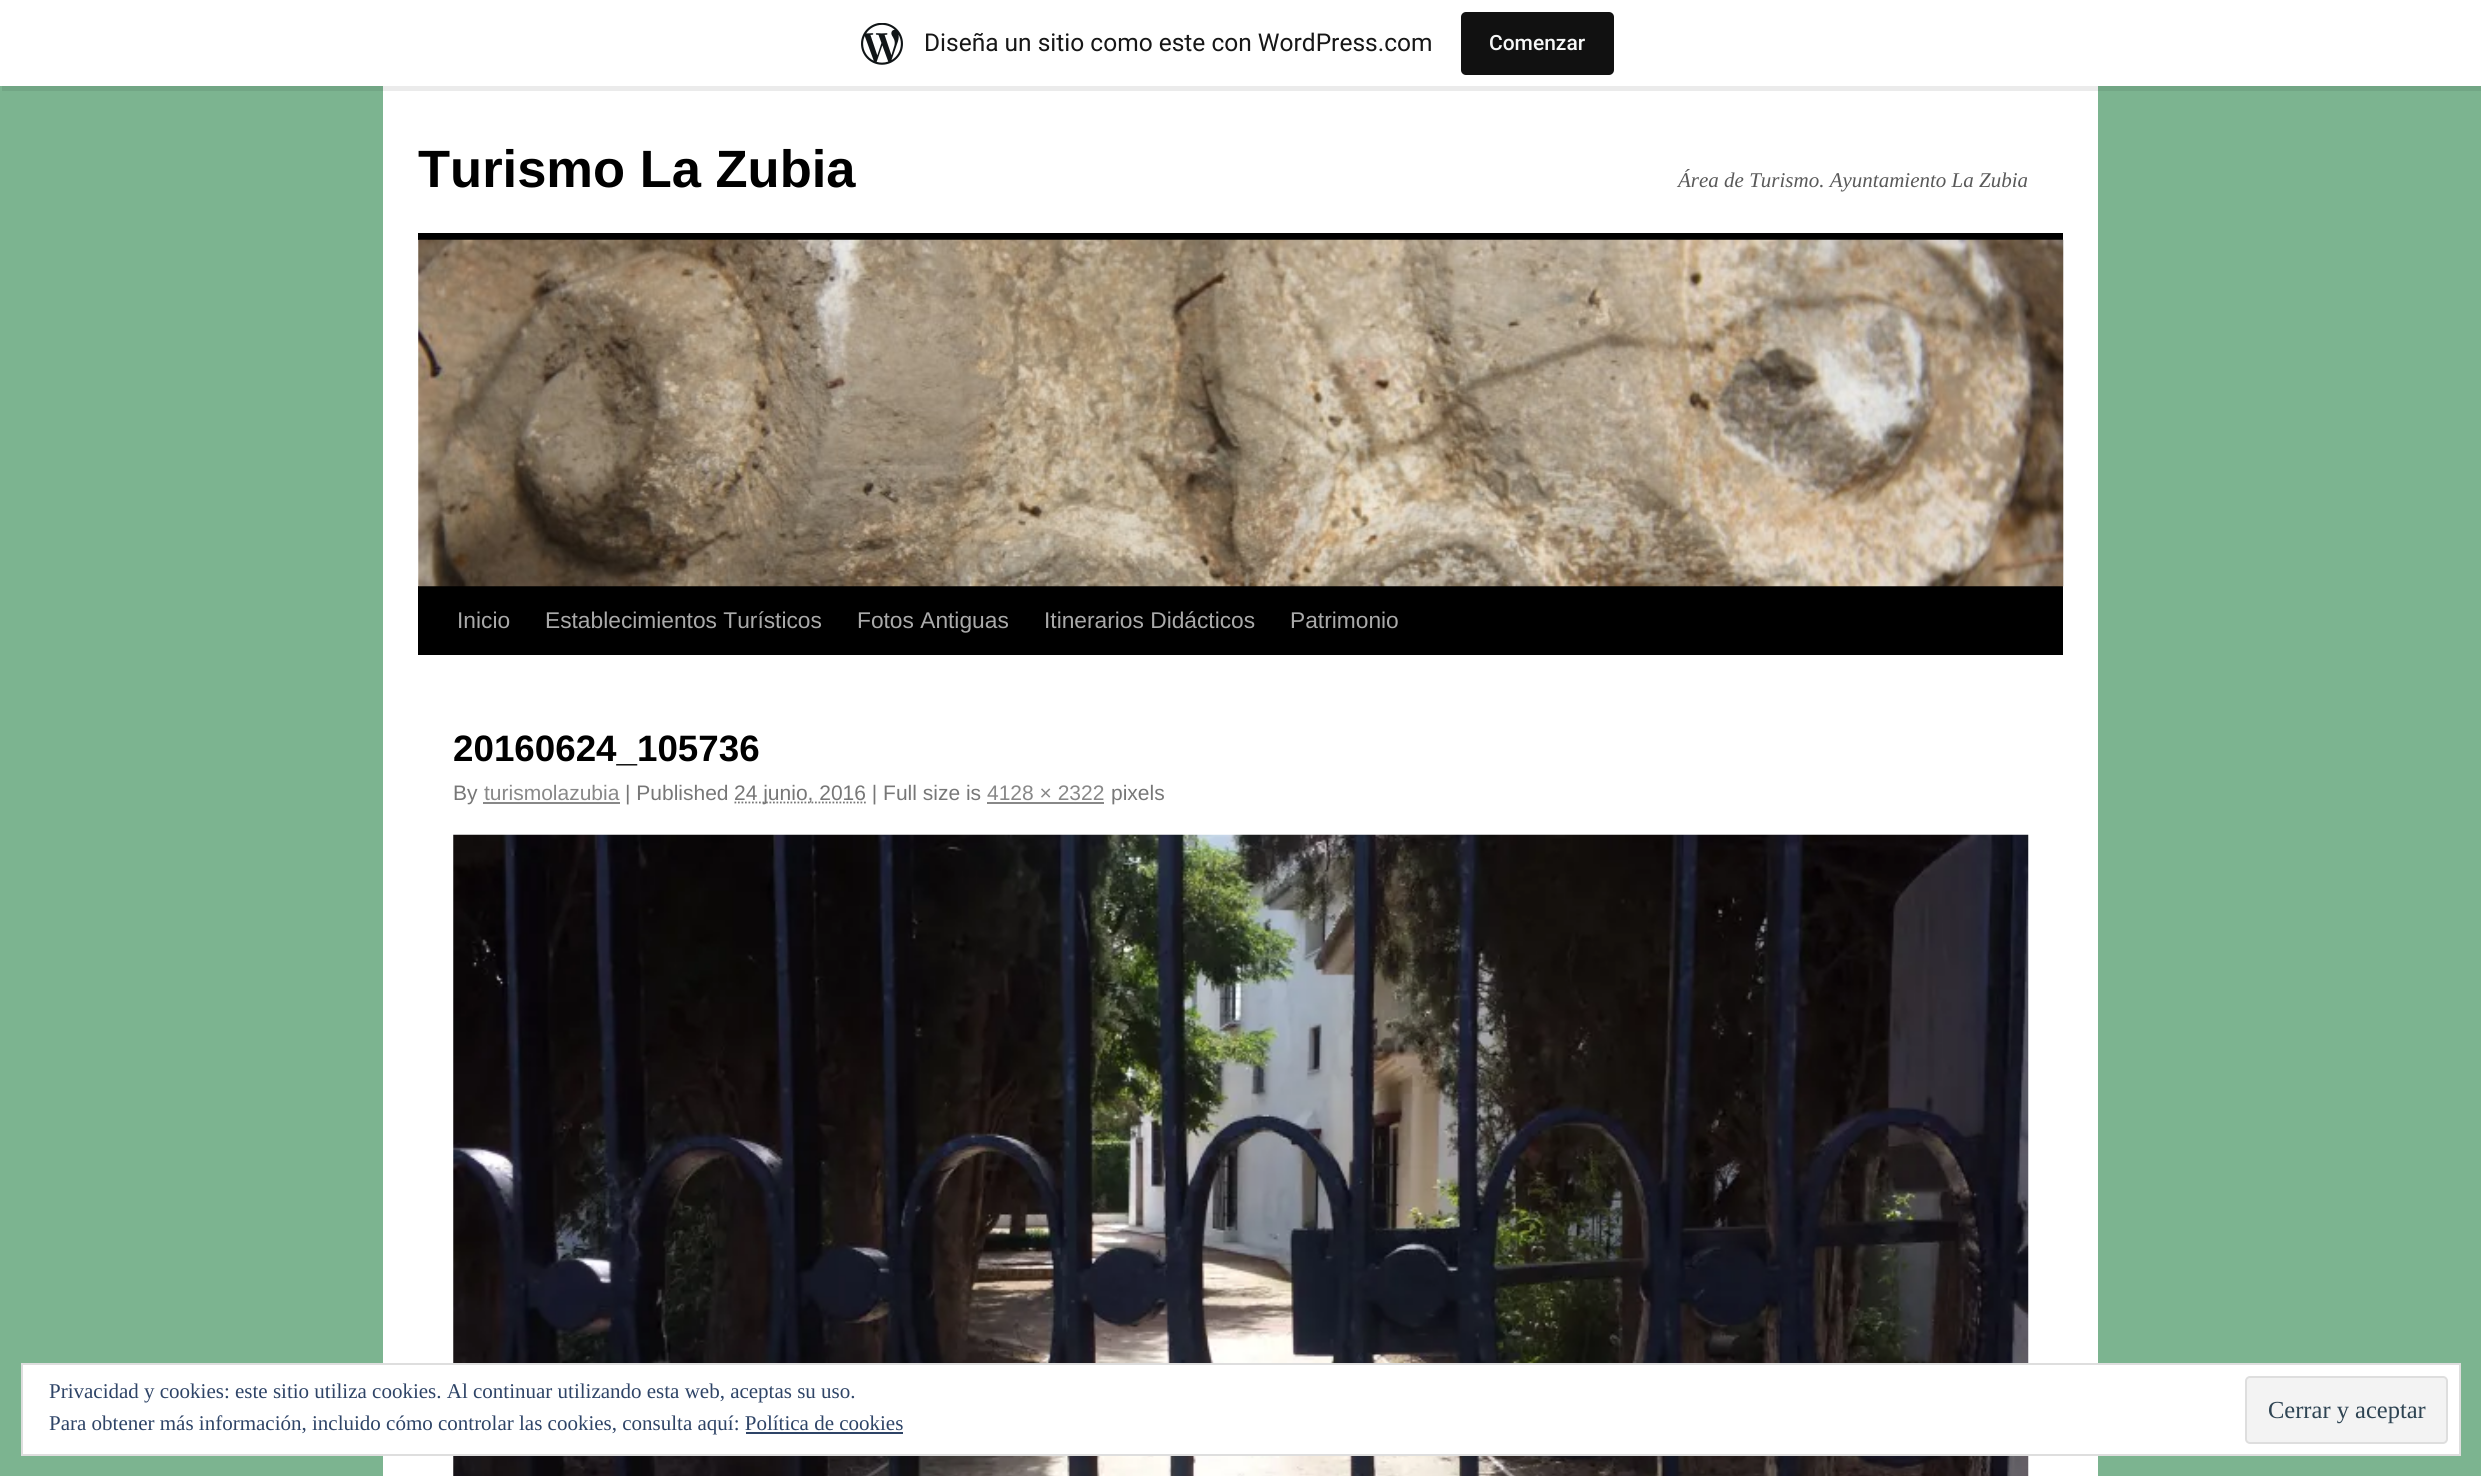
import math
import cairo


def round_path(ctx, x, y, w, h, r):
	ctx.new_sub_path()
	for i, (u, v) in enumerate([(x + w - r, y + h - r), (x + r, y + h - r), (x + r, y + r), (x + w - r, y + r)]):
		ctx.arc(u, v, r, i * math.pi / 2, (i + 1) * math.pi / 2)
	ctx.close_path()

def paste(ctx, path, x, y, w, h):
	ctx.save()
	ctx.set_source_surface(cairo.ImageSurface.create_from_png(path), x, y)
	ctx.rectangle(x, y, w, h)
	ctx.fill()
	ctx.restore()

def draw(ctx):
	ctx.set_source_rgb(0.486, 0.706, 0.565)
	ctx.paint()
	ctx.set_source_rgb(1, 1, 1)
	ctx.rectangle(383, 86, 1715, 1390)
	ctx.fill()
	ctx.set_source_rgba(0, 0, 0, 0.08)
	ctx.new_path()
	ctx.move_to(2, 86)
	ctx.line_to(2, 91)
	ctx.line_to(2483, 91)
	ctx.line_to(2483, 5)
	ctx.line_to(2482, 5)
	ctx.line_to(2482, 86)
	ctx.close_path()
	ctx.fill()
	ctx.set_source_rgb(1, 1, 1)
	ctx.rectangle(0, 0, 2481, 86)
	ctx.fill()
	paste(ctx, 'media/1.png', 861, 23, 42, 42)
	ctx.select_font_face('Roboto')
	ctx.set_font_size(24.5)
	ctx.set_source_rgb(0.09, 0.09, 0.09)
	ctx.move_to(924, 51)
	ctx.show_text('Diseña un sitio como este con WordPress.com')
	ctx.set_source_rgb(0.067, 0.067, 0.067)
	round_path(ctx, 1461, 12, 153, 63, 5)
	ctx.fill()
	ctx.select_font_face('Roboto Medium')
	ctx.set_font_size(21)
	ctx.set_source_rgb(0.965, 0.969, 0.969)
	ctx.move_to(1489, 50)
	ctx.show_text('Comenzar')
	ctx.select_font_face('Liberation Sans', cairo.FONT_SLANT_NORMAL, cairo.FONT_WEIGHT_BOLD)
	ctx.set_font_size(52.5)
	ctx.set_source_rgb(0, 0, 0)
	ctx.move_to(418, 187)
	ctx.show_text('Turismo La Zubia')
	ctx.select_font_face('Liberation Serif', cairo.FONT_SLANT_ITALIC)
	ctx.set_font_size(21)
	ctx.set_source_rgb(0.349, 0.349, 0.349)
	ctx.move_to(1678, 187)
	ctx.show_text('Área de Turismo. Ayuntamiento La Zubia')
	ctx.set_source_rgb(0, 0, 0)
	ctx.rectangle(418, 233, 1645, 7)
	ctx.fill()
	ctx.rectangle(418, 586, 1645, 69)
	ctx.fill()
	paste(ctx, 'media/2.png', 418, 239, 1646, 348)
	ctx.select_font_face('Liberation Sans')
	ctx.set_font_size(22.75)
	ctx.set_source_rgb(0.667, 0.667, 0.667)
	for x, y, s in [
		(457, 628, 'Inicio'),
		(545, 628, 'Establecimientos Turísticos'),
		(857, 628, 'Fotos Antiguas'),
		(1044, 628, 'Itinerarios Didácticos'),
		(1290, 628, 'Patrimonio'),
	]:
		ctx.move_to(x, y)
		ctx.show_text(s)
	ctx.select_font_face('Liberation Sans', cairo.FONT_SLANT_NORMAL, cairo.FONT_WEIGHT_BOLD)
	ctx.set_font_size(36.75)
	ctx.set_source_rgb(0, 0, 0)
	ctx.move_to(453, 761)
	ctx.show_text('20160624_105736')
	ctx.select_font_face('Liberation Sans')
	ctx.set_font_size(21)
	ctx.set_source_rgb(0.467, 0.467, 0.467)
	ctx.move_to(453, 800)
	ctx.show_text('By')
	ctx.set_source_rgb(0.533, 0.533, 0.533)
	ctx.move_to(484, 800)
	ctx.show_text('turismolazubia')
	ctx.rectangle(483, 802, 137, 2)
	ctx.fill()
	ctx.set_source_rgb(0.467, 0.467, 0.467)
	ctx.move_to(625, 800)
	ctx.show_text('| Published')
	ctx.new_path()
	ctx.move_to(734.5, 802.5)
	ctx.line_to(866.5, 802.5)
	ctx.set_line_width(1.8)
	ctx.set_dash([1.75, 1.75])
	ctx.stroke()
	ctx.move_to(734, 800)
	ctx.show_text('24 junio, 2016 | Full size is')
	ctx.set_source_rgb(0.533, 0.533, 0.533)
	ctx.move_to(987, 800)
	ctx.show_text('4128 × 2322')
	ctx.rectangle(987, 802, 117, 2)
	ctx.fill()
	ctx.set_source_rgb(0.467, 0.467, 0.467)
	ctx.move_to(1111, 800)
	ctx.show_text('pixels')
	paste(ctx, 'media/3.png', 453, 834, 1576, 642)
	ctx.set_source_rgb(1, 1, 1)
	ctx.rectangle(22, 1364, 2438, 91)
	ctx.fill_preserve()
	ctx.set_source_rgb(0.871, 0.871, 0.871)
	ctx.set_line_width(2)
	ctx.set_dash([])
	ctx.stroke()
	ctx.select_font_face('Liberation Serif')
	ctx.set_source_rgb(0.18, 0.267, 0.404)
	ctx.move_to(49, 1398)
	ctx.show_text('Privacidad y cookies: este sitio utiliza cookies. Al continuar utilizando esta web, aceptas su uso.')
	ctx.move_to(49, 1430)
	ctx.show_text('Para obtener más información, incluido cómo controlar las cookies, consulta aquí: Política de cookies')
	ctx.set_source_rgb(0.953, 0.953, 0.953)
	round_path(ctx, 2246, 1377, 201, 66, 4)
	ctx.fill_preserve()
	ctx.set_source_rgb(0.871, 0.871, 0.871)
	ctx.stroke()
	ctx.set_font_size(24.5)
	ctx.set_source_rgb(0.18, 0.267, 0.325)
	ctx.move_to(2268, 1418)
	ctx.show_text('Cerrar y aceptar')
	ctx.set_source_rgb(0.18, 0.267, 0.404)
	ctx.rectangle(746, 1432, 157, 2)
	ctx.fill()


surface = cairo.ImageSurface(cairo.FORMAT_RGB24, 2481, 1476)
ctx = cairo.Context(surface)
options = cairo.FontOptions()
options.set_hint_metrics(cairo.HINT_METRICS_OFF)
options.set_hint_style(cairo.HINT_STYLE_NONE)
ctx.set_font_options(options)
ctx.set_miter_limit(4)
draw(ctx)
surface.write_to_png('image.png')
